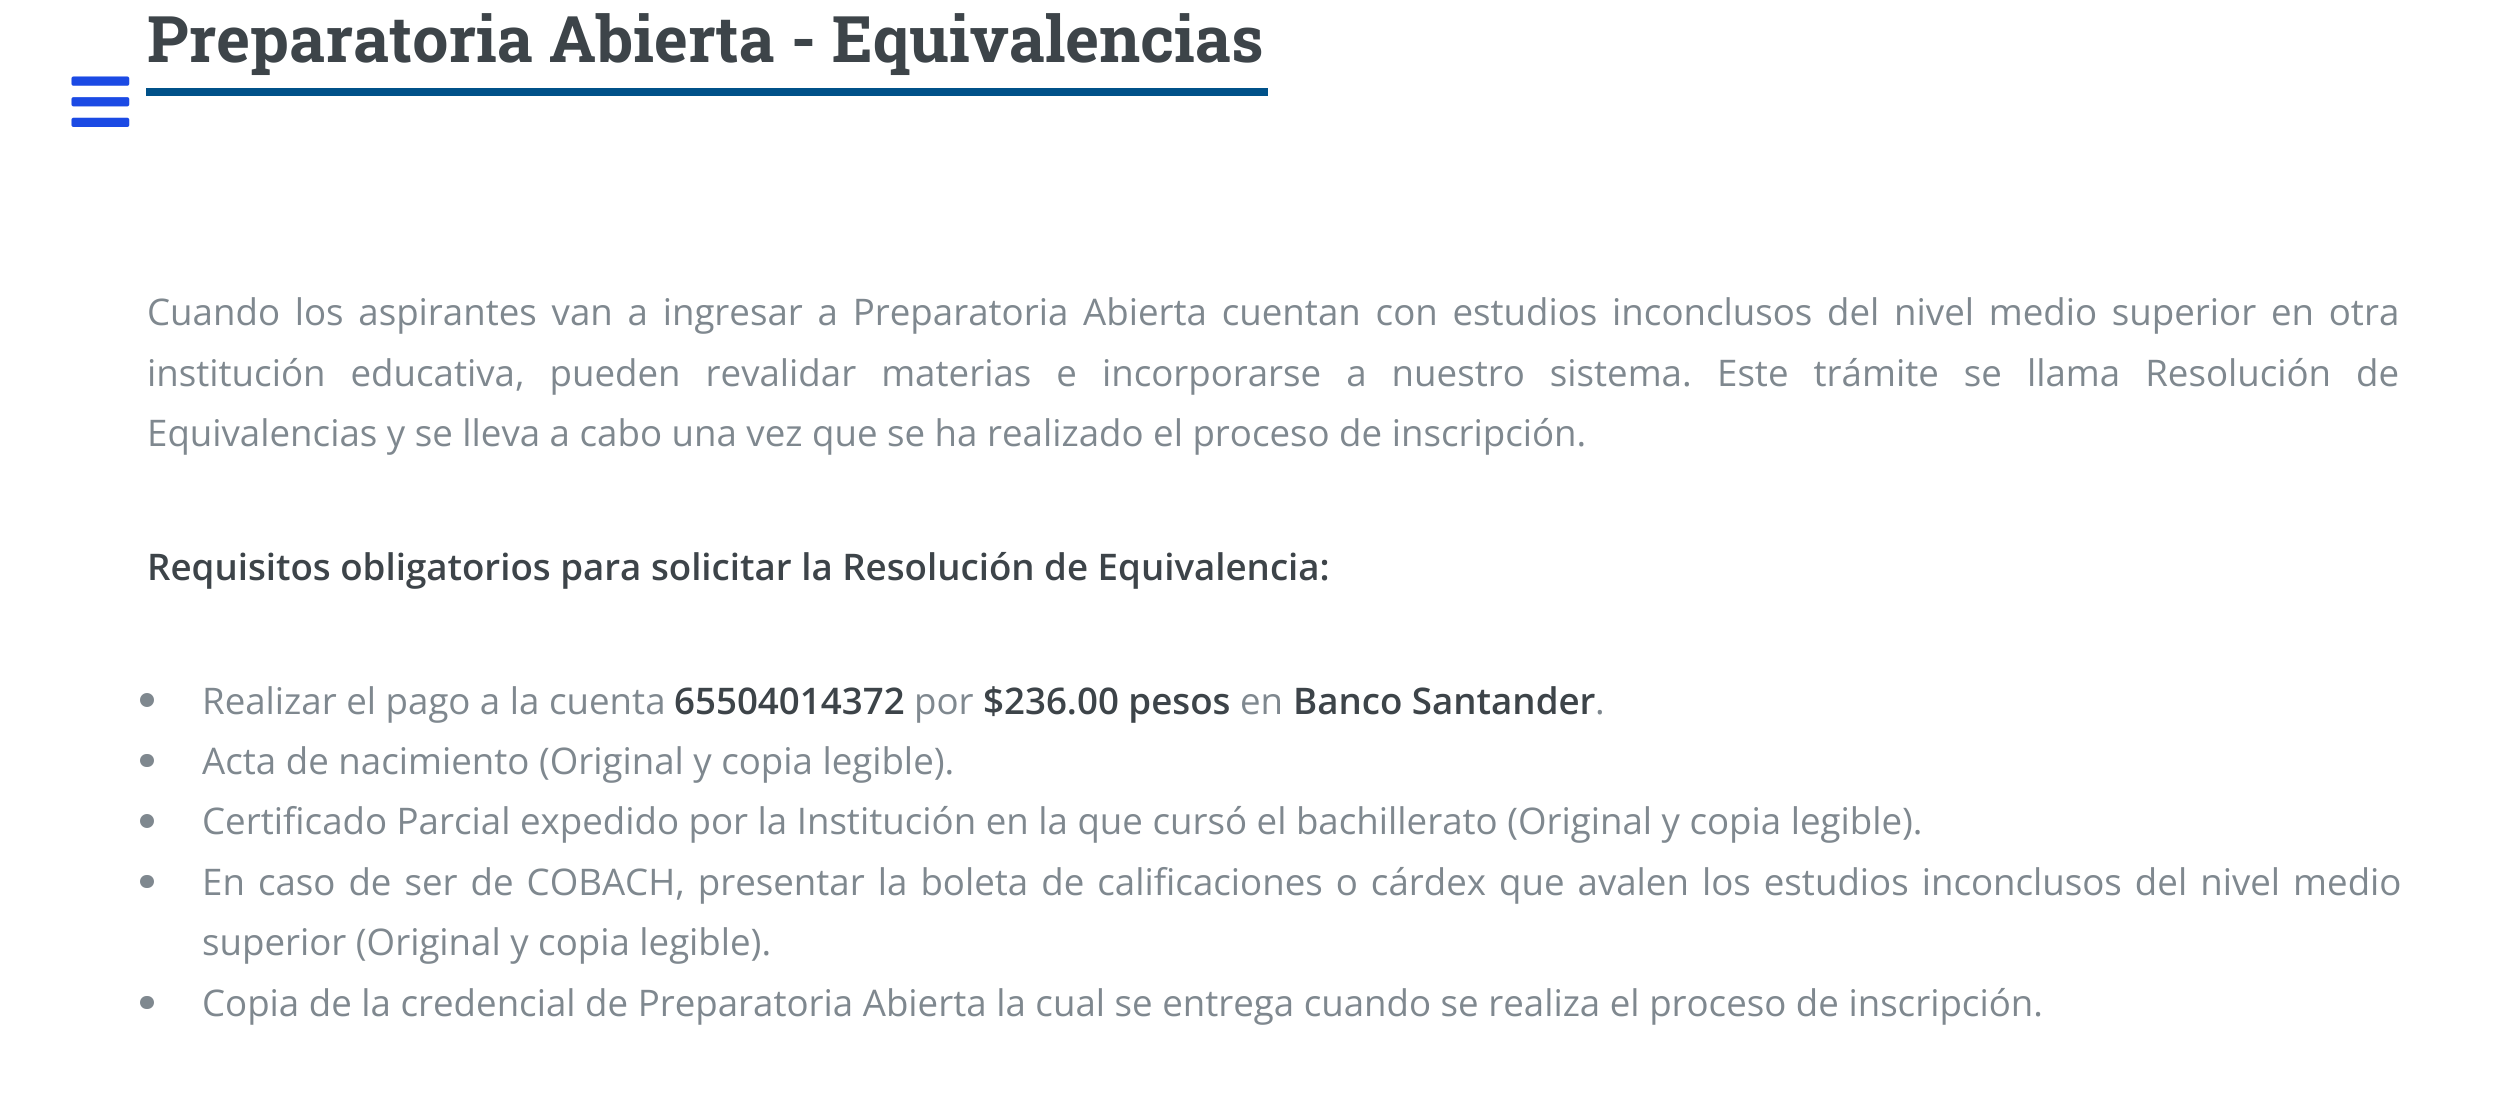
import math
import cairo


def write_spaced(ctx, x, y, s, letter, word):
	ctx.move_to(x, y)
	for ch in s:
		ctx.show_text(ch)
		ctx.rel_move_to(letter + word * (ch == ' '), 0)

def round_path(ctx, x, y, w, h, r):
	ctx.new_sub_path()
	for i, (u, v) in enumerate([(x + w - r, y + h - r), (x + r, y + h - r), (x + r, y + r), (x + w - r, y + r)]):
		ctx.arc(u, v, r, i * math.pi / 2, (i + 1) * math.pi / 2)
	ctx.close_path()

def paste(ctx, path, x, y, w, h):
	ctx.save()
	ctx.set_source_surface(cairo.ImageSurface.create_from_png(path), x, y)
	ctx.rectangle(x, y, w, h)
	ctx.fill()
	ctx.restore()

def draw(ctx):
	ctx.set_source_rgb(1, 1, 1)
	ctx.paint()
	paste(ctx, 'media/1.png', 71, 76, 59, 51)
	ctx.set_source_rgb(0, 0.318, 0.537)
	ctx.rectangle(146, 88, 1122, 8)
	ctx.fill()
	ctx.select_font_face('Roboto Slab', cairo.FONT_SLANT_NORMAL, cairo.FONT_WEIGHT_BOLD)
	ctx.set_font_size(64.2)
	ctx.set_source_rgb(0.239, 0.267, 0.286)
	ctx.move_to(147, 62)
	ctx.show_text('Preparatoria Abierta - Equivalencias')
	ctx.select_font_face('Open Sans')
	ctx.set_font_size(36.67)
	ctx.set_source_rgb(0.498, 0.533, 0.561)
	write_spaced(ctx, 147, 325, 'Cuando los aspirantes van a ingresar a Preparatoria Abierta cuentan con estudios inconclusos del nivel medio superior en otra', 0, 5.25)
	write_spaced(ctx, 147, 386, 'institución educativa, pueden revalidar materias e incorporarse a nuestro sistema.', 0, 15.5)
	write_spaced(ctx, 1717, 386, 'Este trámite se llama Resolución de', 0, 15.5)
	ctx.move_to(147, 446)
	ctx.show_text('Equivalencias y se lleva a cabo una vez que se ha realizado el proceso de inscripción.')
	ctx.select_font_face('Open Sans SemiBold')
	ctx.set_source_rgb(0.239, 0.267, 0.286)
	ctx.move_to(147, 580)
	ctx.show_text('Requisitos obligatorios para solicitar la Resolución de Equivalencia:')
	ctx.set_source_rgb(0.498, 0.533, 0.561)
	ctx.new_path()
	ctx.arc(147, 700, 7, 0, 2 * math.pi)
	ctx.fill()
	ctx.select_font_face('Open Sans')
	ctx.move_to(202, 714)
	ctx.show_text('Realizar el pago a la cuenta')
	ctx.select_font_face('Open Sans SemiBold')
	ctx.set_source_rgb(0.239, 0.267, 0.286)
	ctx.move_to(674, 714)
	ctx.show_text('65504014372')
	ctx.select_font_face('Open Sans')
	ctx.set_source_rgb(0.498, 0.533, 0.561)
	ctx.move_to(914, 714)
	ctx.show_text('por')
	ctx.select_font_face('Open Sans SemiBold')
	ctx.set_source_rgb(0.239, 0.267, 0.286)
	ctx.move_to(983, 714)
	ctx.show_text('$236.00 pesos')
	ctx.select_font_face('Open Sans')
	ctx.set_source_rgb(0.498, 0.533, 0.561)
	ctx.move_to(1240, 714)
	ctx.show_text('en')
	ctx.select_font_face('Open Sans SemiBold')
	ctx.set_source_rgb(0.239, 0.267, 0.286)
	ctx.move_to(1293, 714)
	ctx.show_text('Banco Santander')
	ctx.select_font_face('Open Sans')
	ctx.set_source_rgb(0.498, 0.533, 0.561)
	ctx.move_to(1595, 714)
	ctx.show_text('.')
	round_path(ctx, 140, 754, 14, 13, 6.5)
	ctx.fill()
	ctx.move_to(202, 774)
	ctx.show_text('Acta de nacimiento (Original y copia legible).')
	ctx.new_path()
	ctx.arc(147, 821, 7, 0, 2 * math.pi)
	ctx.fill()
	ctx.move_to(202, 834)
	ctx.show_text('Certificado Parcial expedido por la Institución en la que cursó el bachillerato (Original y copia legible).')
	round_path(ctx, 140, 875, 14, 13, 6.5)
	ctx.fill()
	write_spaced(ctx, 202, 895, 'En caso de ser de COBACH, presentar la boleta de calificaciones o cárdex que avalen los estudios inconclusos del nivel medio', 0, 3.5)
	ctx.move_to(202, 955)
	ctx.show_text('superior (Original y copia legible).')
	round_path(ctx, 140, 996, 14, 13, 6.5)
	ctx.fill()
	ctx.move_to(202, 1016)
	ctx.show_text('Copia de la credencial de Preparatoria Abierta la cual se entrega cuando se realiza el proceso de inscripción.')


surface = cairo.ImageSurface(cairo.FORMAT_RGB24, 2504, 1094)
ctx = cairo.Context(surface)
options = cairo.FontOptions()
options.set_hint_metrics(cairo.HINT_METRICS_OFF)
options.set_hint_style(cairo.HINT_STYLE_NONE)
ctx.set_font_options(options)
ctx.set_miter_limit(4)
draw(ctx)
surface.write_to_png('image.png')
